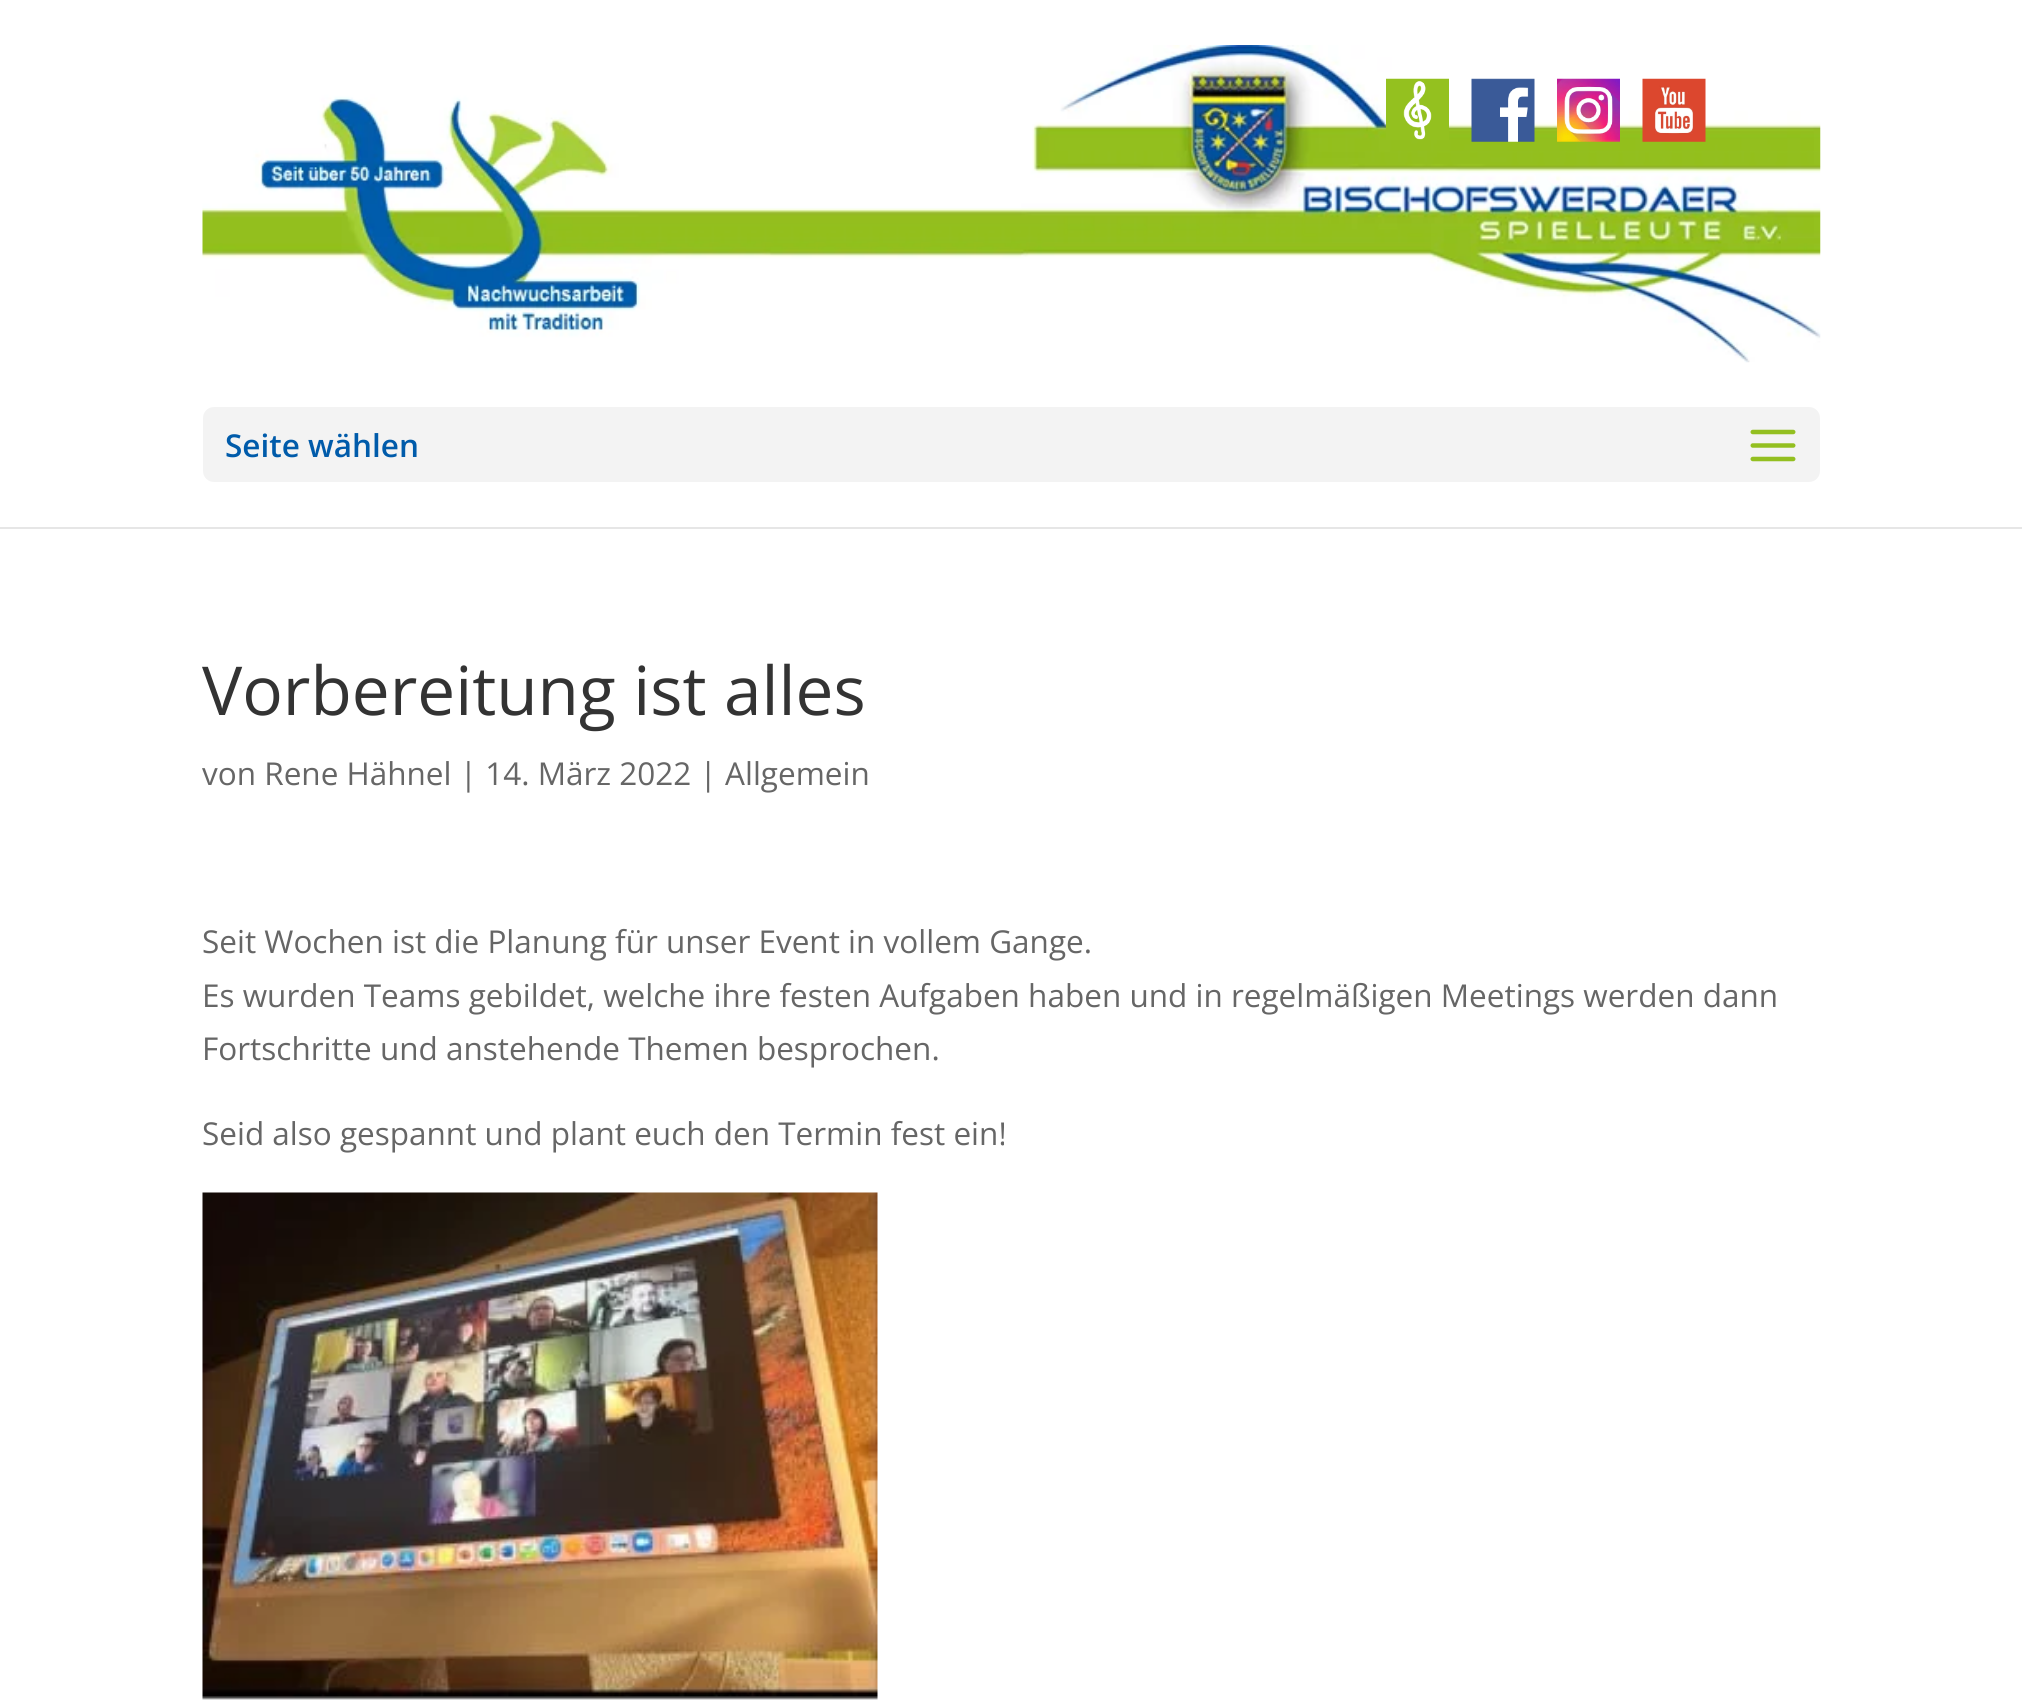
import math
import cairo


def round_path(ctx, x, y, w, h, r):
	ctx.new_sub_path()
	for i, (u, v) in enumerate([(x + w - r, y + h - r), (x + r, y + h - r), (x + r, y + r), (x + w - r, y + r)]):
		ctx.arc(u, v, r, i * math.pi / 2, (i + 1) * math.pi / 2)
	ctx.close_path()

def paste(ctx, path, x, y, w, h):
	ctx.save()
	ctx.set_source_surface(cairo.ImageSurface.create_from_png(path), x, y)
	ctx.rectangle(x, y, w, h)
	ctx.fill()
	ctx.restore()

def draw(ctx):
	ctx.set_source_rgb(1, 1, 1)
	ctx.paint()
	ctx.set_source_rgb(0.902, 0.902, 0.902)
	ctx.new_path()
	ctx.move_to(0, 526)
	ctx.line_to(0, 529)
	ctx.line_to(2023, 529)
	ctx.line_to(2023, 2)
	ctx.line_to(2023, 526)
	ctx.close_path()
	ctx.fill()
	ctx.set_source_rgb(1, 1, 1)
	ctx.rectangle(0, 526, 2022, 1)
	ctx.fill()
	paste(ctx, 'media/1.png', 202, 45, 1619, 318)
	paste(ctx, 'media/2.png', 1386, 78, 63, 62)
	paste(ctx, 'media/3.png', 1471, 78, 64, 64)
	paste(ctx, 'media/4.png', 1557, 78, 63, 64)
	paste(ctx, 'media/5.png', 1642, 78, 64, 64)
	ctx.set_source_rgb(0.953, 0.953, 0.953)
	round_path(ctx, 203, 407, 1617, 75, 11)
	ctx.fill()
	ctx.select_font_face('Open Sans SemiBold')
	ctx.set_font_size(31.5)
	ctx.set_source_rgb(0, 0.357, 0.667)
	ctx.move_to(225, 457)
	ctx.show_text('Seite wählen')
	paste(ctx, 'media/6.png', 1750, 429, 46, 33)
	ctx.select_font_face('Open Sans')
	ctx.set_font_size(67.5)
	ctx.set_source_rgb(0.2, 0.2, 0.2)
	ctx.move_to(202, 715)
	ctx.show_text('Vorbereitung ist alles')
	ctx.set_font_size(31.5)
	ctx.set_source_rgb(0.4, 0.4, 0.4)
	for x, y, s in [
		(202, 785, 'von Rene Hähnel | 14. März 2022 | Allgemein'),
		(202, 953, 'Seit Wochen ist die Planung für unser Event in vollem Gange.'),
		(202, 1007, 'Es wurden Teams gebildet, welche ihre festen Aufgaben haben und in regelmäßigen Meetings werden dann'),
		(202, 1060, 'Fortschritte und anstehende Themen besprochen.'),
		(202, 1145, 'Seid also gespannt und plant euch den Termin fest ein!'),
	]:
		ctx.move_to(x, y)
		ctx.show_text(s)
	paste(ctx, 'media/7.png', 202, 1192, 676, 508)


surface = cairo.ImageSurface(cairo.FORMAT_RGB24, 2022, 1700)
ctx = cairo.Context(surface)
options = cairo.FontOptions()
options.set_hint_metrics(cairo.HINT_METRICS_OFF)
options.set_hint_style(cairo.HINT_STYLE_NONE)
ctx.set_font_options(options)
ctx.set_miter_limit(4)
draw(ctx)
surface.write_to_png('image.png')
